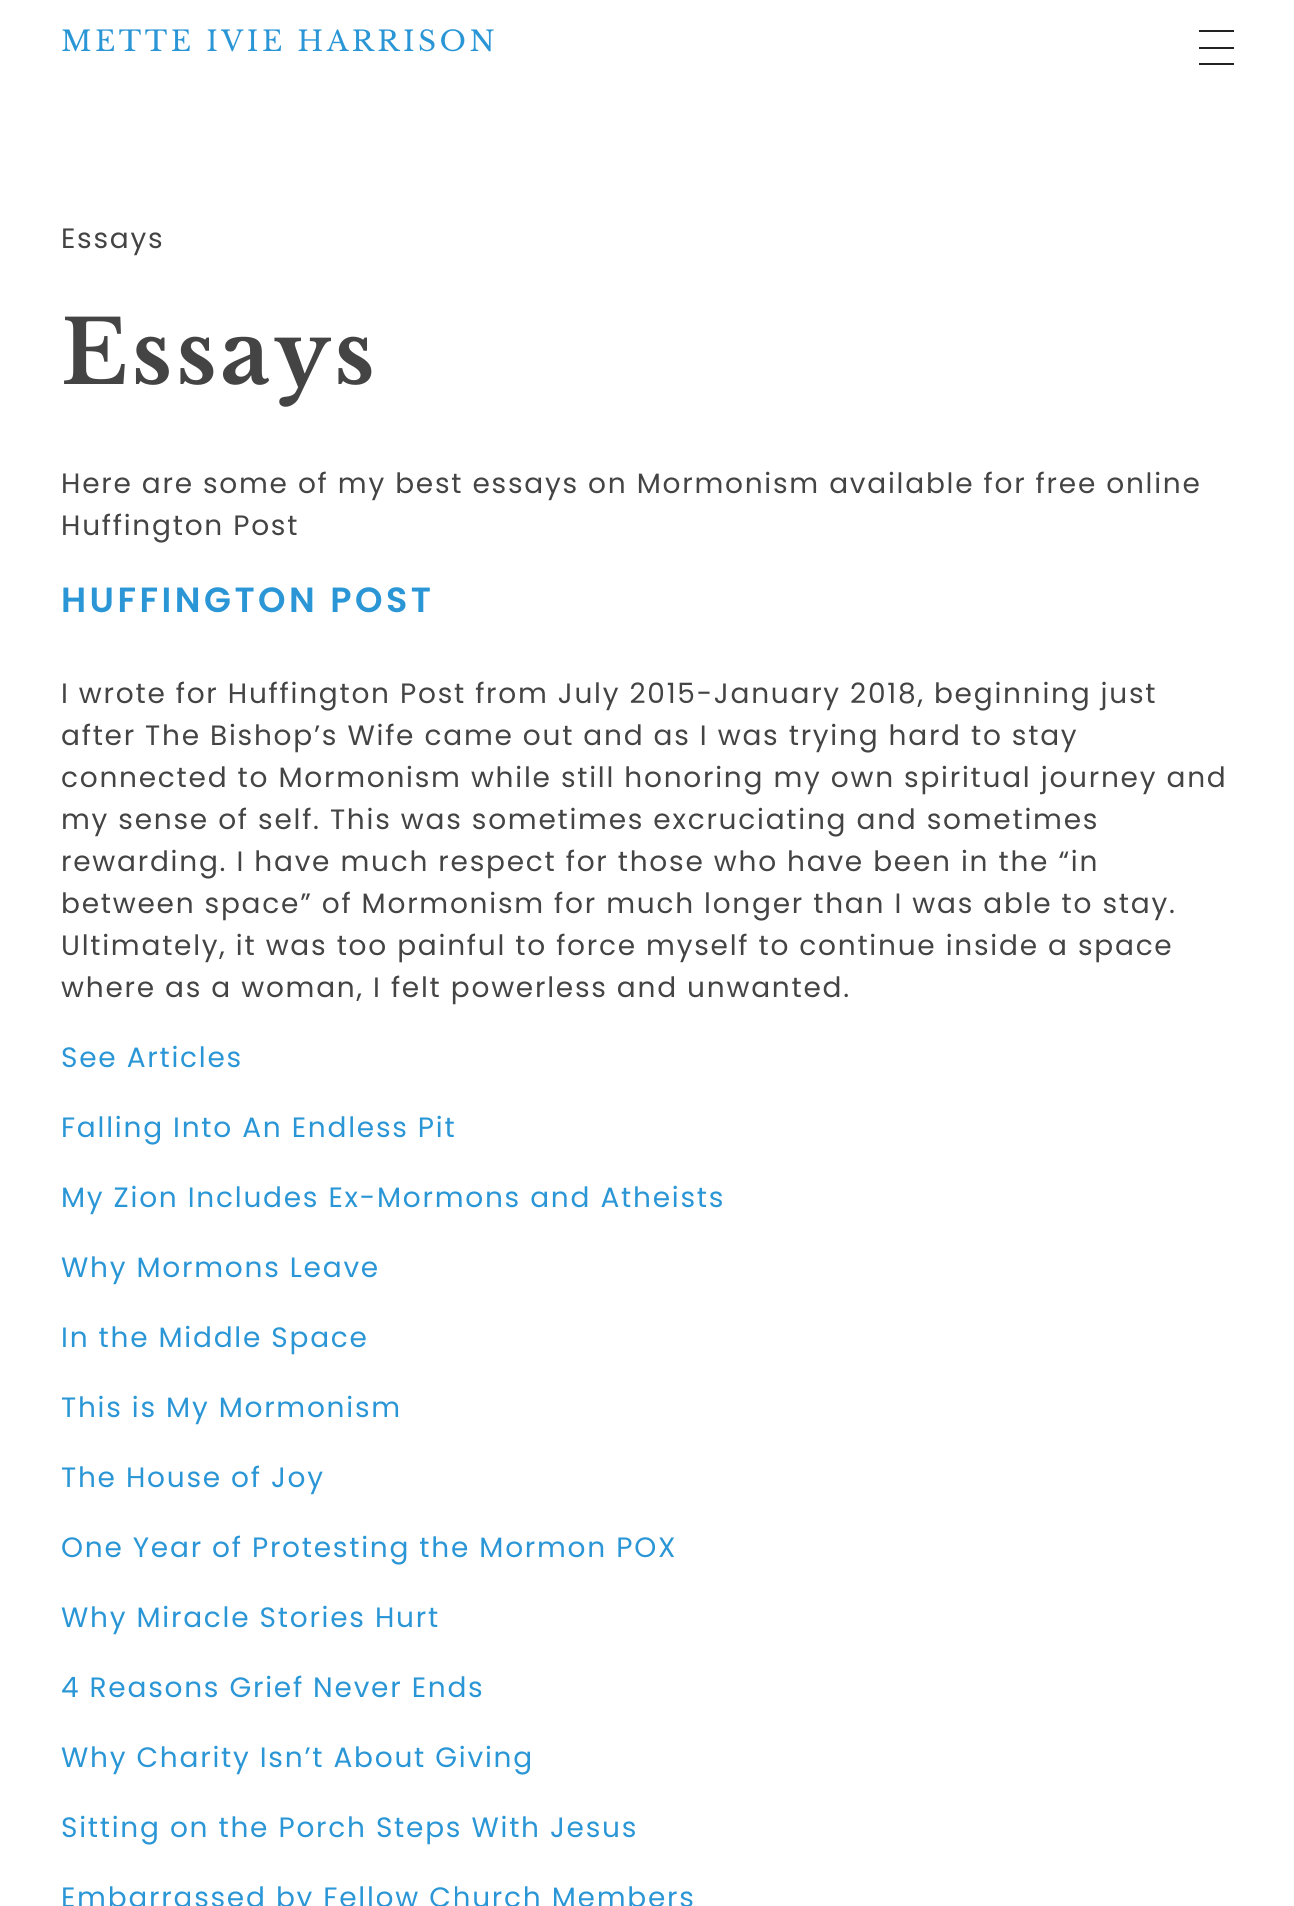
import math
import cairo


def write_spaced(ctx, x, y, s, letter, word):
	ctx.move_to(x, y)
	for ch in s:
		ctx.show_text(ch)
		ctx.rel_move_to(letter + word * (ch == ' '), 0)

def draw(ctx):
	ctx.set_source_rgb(1, 1, 1)
	ctx.paint()
	ctx.select_font_face('Libre Baskerville')
	ctx.set_font_size(28)
	ctx.set_source_rgb(0.165, 0.588, 0.839)
	write_spaced(ctx, 61, 51, 'METTE IVIE HARRISON', 3.5, 0)
	ctx.set_source_rgb(0.133, 0.133, 0.133)
	ctx.rectangle(1199, 30, 35, 2)
	ctx.rectangle(1199, 47, 35, 2)
	ctx.rectangle(1199, 63, 35, 2)
	ctx.fill()
	ctx.select_font_face('Poppins')
	ctx.set_source_rgb(0.267, 0.267, 0.267)
	write_spaced(ctx, 61, 248, 'Essays', 1.75, 0)
	ctx.select_font_face('Libre Baskerville', cairo.FONT_SLANT_NORMAL, cairo.FONT_WEIGHT_BOLD)
	ctx.set_font_size(87.5)
	write_spaced(ctx, 61, 384, 'Essays', 3.5, 0)
	ctx.select_font_face('Poppins')
	ctx.set_font_size(28)
	write_spaced(ctx, 61, 493, 'Here are some of my best essays on Mormonism available for free online', 1.75, 0)
	write_spaced(ctx, 61, 535, 'Huffington Post', 1.75, 0)
	ctx.select_font_face('Poppins SemiBold')
	ctx.set_font_size(35)
	ctx.set_source_rgb(0.165, 0.588, 0.839)
	write_spaced(ctx, 61, 612, 'HUFFINGTON POST', 3.5, 0)
	ctx.select_font_face('Poppins')
	ctx.set_font_size(28)
	ctx.set_source_rgb(0.267, 0.267, 0.267)
	for x, y, s in [
		(61, 703, 'I wrote for Huffington Post from July 2015-January 2018, beginning just'),
		(61, 745, 'after The Bishop’s Wife came out and as I was trying hard to stay'),
		(61, 787, 'connected to Mormonism while still honoring my own spiritual journey and'),
		(61, 829, 'my sense of self. This was sometimes excruciating and sometimes'),
		(61, 871, 'rewarding. I have much respect for those who have been in the “in'),
		(61, 913, 'between space” of Mormonism for much longer than I was able to stay.'),
		(61, 955, 'Ultimately, it was too painful to force myself to continue inside a space'),
		(61, 997, 'where as a woman, I felt powerless and unwanted.'),
	]:
		write_spaced(ctx, x, y, s, 1.75, 0)
	ctx.set_source_rgb(0.165, 0.588, 0.839)
	for x, y, s in [
		(61, 1067, 'See Articles'),
		(61, 1137, 'Falling Into An Endless Pit'),
		(61, 1207, 'My Zion Includes Ex-Mormons and Atheists'),
		(61, 1277, 'Why Mormons Leave'),
		(61, 1347, 'In the Middle Space'),
		(61, 1417, 'This is My Mormonism'),
		(61, 1487, 'The House of Joy'),
		(61, 1557, 'One Year of Protesting the Mormon POX'),
		(61, 1627, 'Why Miracle Stories Hurt'),
		(61, 1697, '4 Reasons Grief Never Ends'),
		(61, 1767, 'Why Charity Isn’t About Giving'),
		(61, 1837, 'Sitting on the Porch Steps With Jesus'),
		(61, 1907, 'Embarrassed by Fellow Church Members'),
	]:
		write_spaced(ctx, x, y, s, 1.75, 0)


surface = cairo.ImageSurface(cairo.FORMAT_RGB24, 1294, 1906)
ctx = cairo.Context(surface)
options = cairo.FontOptions()
options.set_hint_metrics(cairo.HINT_METRICS_OFF)
options.set_hint_style(cairo.HINT_STYLE_NONE)
ctx.set_font_options(options)
ctx.set_miter_limit(4)
draw(ctx)
surface.write_to_png('image.png')
